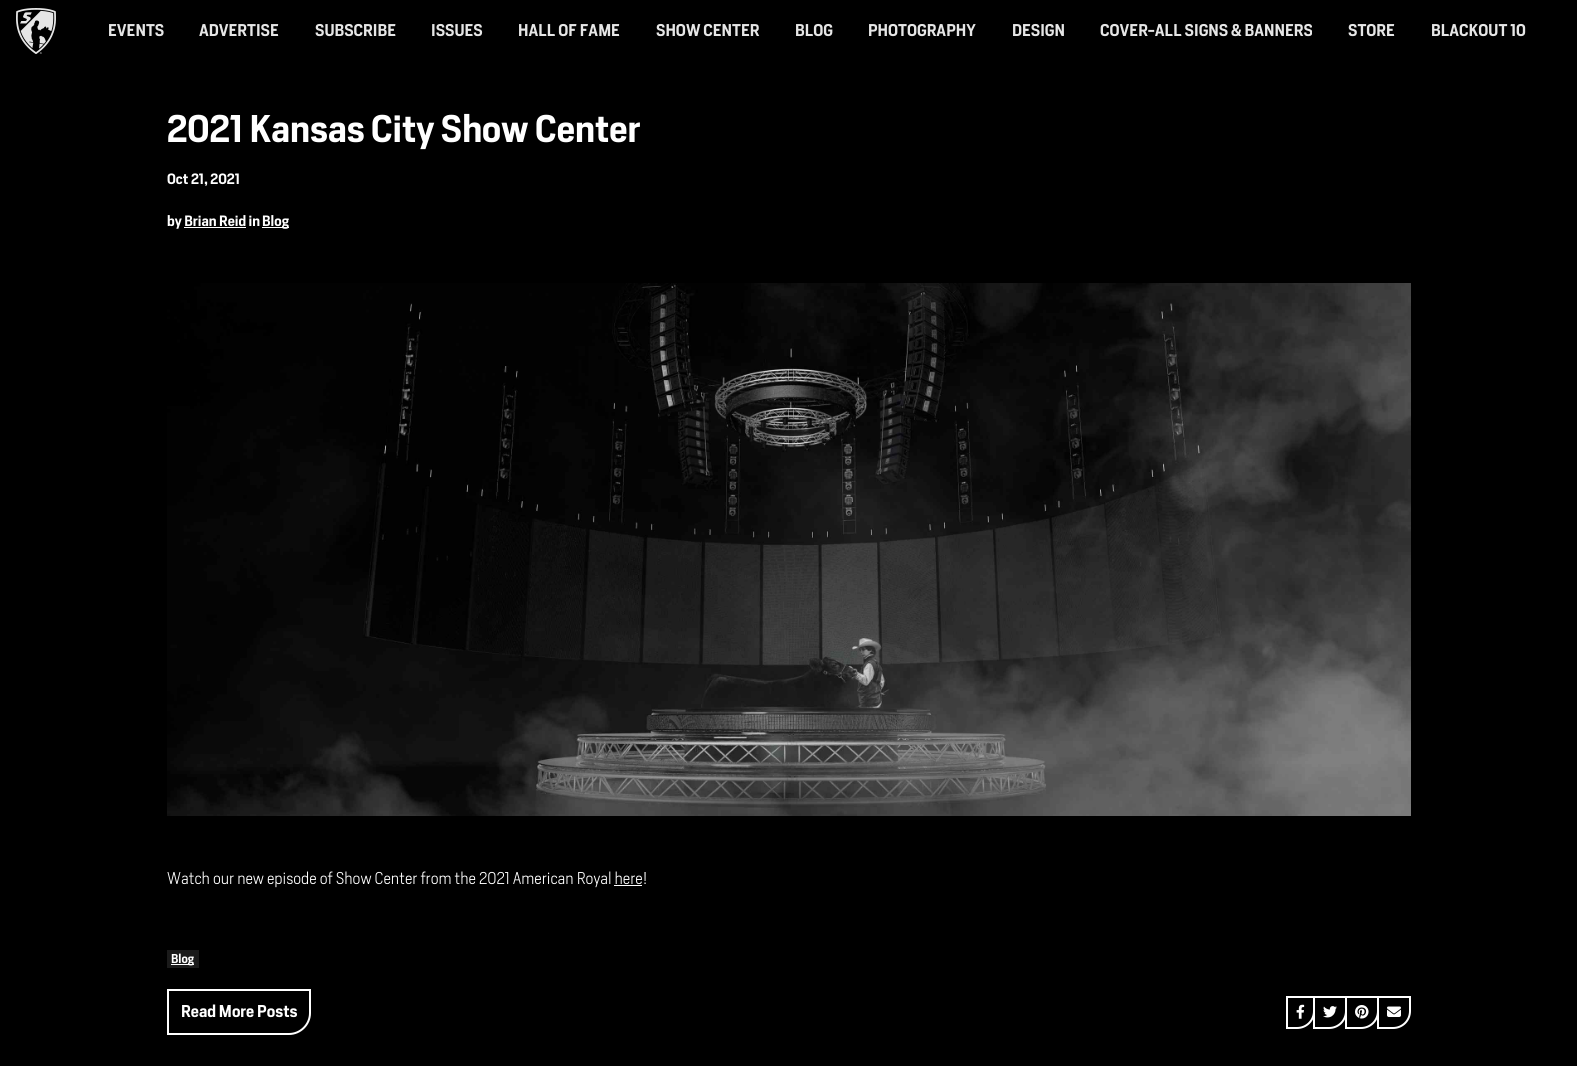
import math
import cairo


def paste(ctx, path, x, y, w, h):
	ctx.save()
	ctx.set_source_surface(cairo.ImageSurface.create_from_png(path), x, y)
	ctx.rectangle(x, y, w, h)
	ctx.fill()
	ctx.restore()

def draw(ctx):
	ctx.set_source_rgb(0, 0, 0)
	ctx.paint()
	paste(ctx, 'media/1.png', 16, 8, 40, 46)
	ctx.select_font_face('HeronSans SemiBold')
	ctx.set_font_size(15.9)
	ctx.set_source_rgb(0.902, 0.902, 0.902)
	for x, y, s in [
		(108, 36, 'EVENTS'),
		(199, 36, 'ADVERTISE'),
		(315, 36, 'SUBSCRIBE'),
		(431, 36, 'ISSUES'),
		(518, 36, 'HALL OF FAME'),
		(656, 36, 'SHOW CENTER'),
		(795, 36, 'BLOG'),
		(868, 36, 'PHOTOGRAPHY'),
		(1012, 36, 'DESIGN'),
		(1100, 36, 'COVER-ALL SIGNS & BANNERS'),
		(1348, 36, 'STORE'),
		(1431, 36, 'BLACKOUT 10'),
	]:
		ctx.move_to(x, y)
		ctx.show_text(s)
	ctx.set_font_size(36)
	ctx.set_source_rgb(1, 1, 1)
	ctx.move_to(167, 142)
	ctx.show_text('2021 Kansas City Show Center')
	ctx.set_font_size(14)
	ctx.move_to(167, 184)
	ctx.show_text('Oct 21, 2021')
	ctx.move_to(167, 226)
	ctx.show_text('by Brian Reid in')
	ctx.rectangle(262, 227, 27, 1)
	ctx.fill()
	ctx.move_to(262, 226)
	ctx.show_text('Blog')
	ctx.rectangle(184, 227, 62, 1)
	ctx.fill()
	paste(ctx, 'media/2.png', 167, 283, 1244, 533)
	ctx.select_font_face('HeronSans Light')
	ctx.set_font_size(16)
	ctx.move_to(167, 884)
	ctx.show_text('Watch our new episode of Show Center from the 2021 American Royal here!')
	ctx.rectangle(614, 885, 28, 1)
	ctx.fill()
	ctx.set_source_rgb(0.102, 0.102, 0.102)
	ctx.rectangle(167, 950, 32, 18)
	ctx.fill()
	ctx.set_source_rgb(1, 1, 1)
	ctx.rectangle(171, 964, 23, 1)
	ctx.fill()
	ctx.select_font_face('HeronSans SemiBold')
	ctx.set_font_size(12)
	ctx.move_to(171, 963)
	ctx.show_text('Blog')
	ctx.new_path()
	ctx.move_to(168, 990)
	ctx.line_to(310, 990)
	ctx.line_to(310, 1013)
	ctx.curve_to(310, 1024.5, 300.5, 1034, 289, 1034)
	ctx.line_to(168, 1034)
	ctx.close_path()
	ctx.stroke()
	ctx.set_font_size(16)
	ctx.move_to(181, 1017)
	ctx.show_text('Read More Posts')
	ctx.new_path()
	ctx.move_to(1287, 997)
	ctx.line_to(1314, 997)
	ctx.line_to(1314, 1011)
	ctx.curve_to(1314, 1020.5, 1306.5, 1028, 1297, 1028)
	ctx.line_to(1287, 1028)
	ctx.close_path()
	ctx.stroke()
	paste(ctx, 'media/3.png', 1296, 1004, 9, 15)
	ctx.new_path()
	ctx.move_to(1314, 997)
	ctx.line_to(1346, 997)
	ctx.line_to(1346, 1011)
	ctx.curve_to(1346, 1020.5, 1338.5, 1028, 1329, 1028)
	ctx.line_to(1314, 1028)
	ctx.close_path()
	ctx.stroke()
	paste(ctx, 'media/4.png', 1323, 1006, 14, 12)
	ctx.new_path()
	ctx.move_to(1346, 997)
	ctx.line_to(1378, 997)
	ctx.line_to(1378, 1011)
	ctx.curve_to(1378, 1020.5, 1370.5, 1028, 1361, 1028)
	ctx.line_to(1346, 1028)
	ctx.close_path()
	ctx.stroke()
	paste(ctx, 'media/5.png', 1355, 1005, 14, 14)
	ctx.new_path()
	ctx.move_to(1378, 997)
	ctx.line_to(1410, 997)
	ctx.line_to(1410, 1011)
	ctx.curve_to(1410, 1020.5, 1402.5, 1028, 1393, 1028)
	ctx.line_to(1378, 1028)
	ctx.close_path()
	ctx.stroke()
	paste(ctx, 'media/6.png', 1387, 1006, 14, 11)


surface = cairo.ImageSurface(cairo.FORMAT_RGB24, 1577, 1066)
ctx = cairo.Context(surface)
options = cairo.FontOptions()
options.set_hint_metrics(cairo.HINT_METRICS_OFF)
options.set_hint_style(cairo.HINT_STYLE_NONE)
ctx.set_font_options(options)
ctx.set_miter_limit(4)
draw(ctx)
surface.write_to_png('image.png')
